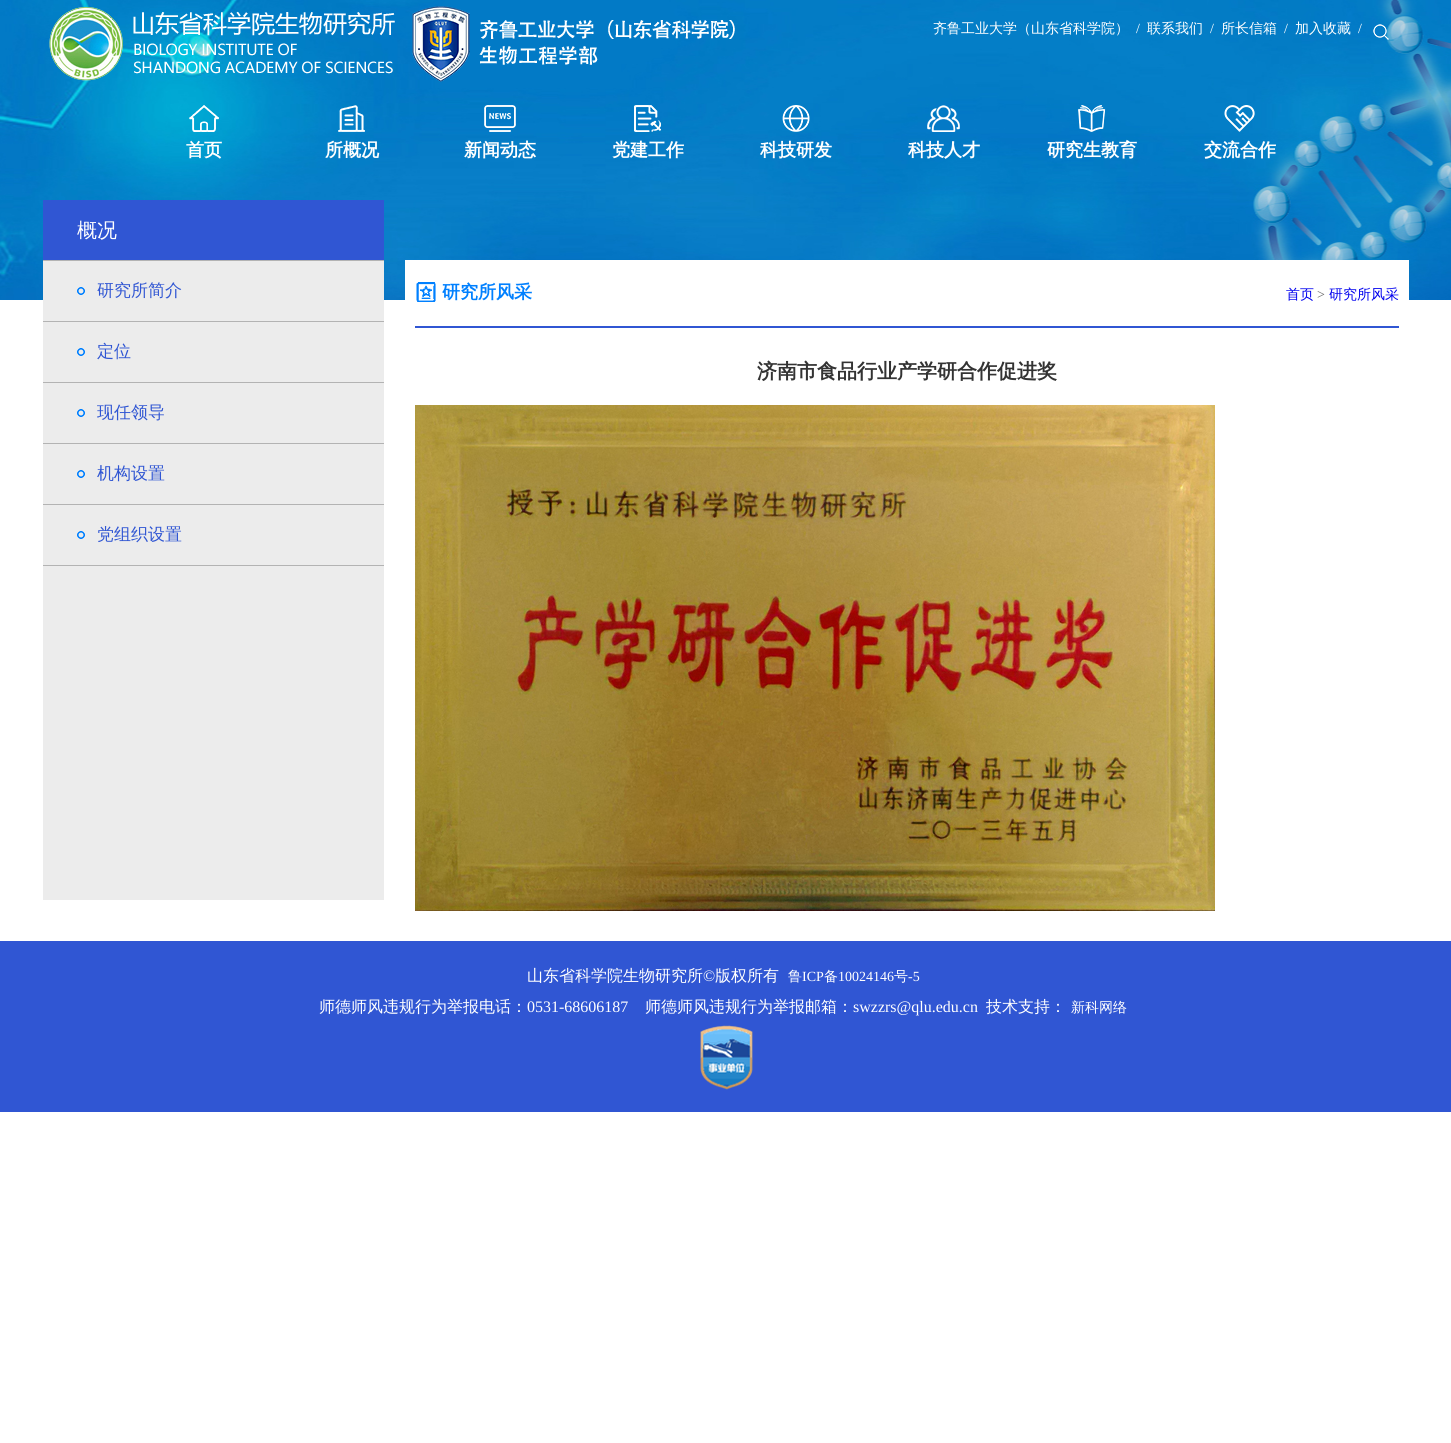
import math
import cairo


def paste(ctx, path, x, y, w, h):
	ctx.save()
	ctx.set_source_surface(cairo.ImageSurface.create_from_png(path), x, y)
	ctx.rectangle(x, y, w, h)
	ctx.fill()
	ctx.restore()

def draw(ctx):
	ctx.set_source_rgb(1, 1, 1)
	ctx.paint()
	paste(ctx, 'media/1.png', 0, 0, 1451, 300)
	paste(ctx, 'media/2.png', 49, 7, 346, 74)
	paste(ctx, 'media/3.png', 412, 6, 323, 76)
	ctx.select_font_face('WenQuanYi Zen Hei Medium')
	ctx.set_font_size(14)
	ctx.set_source_rgb(1, 1, 1)
	ctx.move_to(933, 33)
	ctx.show_text('齐鲁工业大学（山东省科学院）')
	ctx.select_font_face('Liberation Serif')
	ctx.move_to(1136, 33)
	ctx.show_text('/')
	ctx.select_font_face('WenQuanYi Zen Hei Medium')
	ctx.move_to(1147, 33)
	ctx.show_text('联系我们')
	ctx.select_font_face('Liberation Serif')
	ctx.move_to(1210, 33)
	ctx.show_text('/')
	ctx.select_font_face('WenQuanYi Zen Hei Medium')
	ctx.move_to(1221, 33)
	ctx.show_text('所长信箱')
	ctx.select_font_face('Liberation Serif')
	ctx.move_to(1284, 33)
	ctx.show_text('/')
	ctx.select_font_face('WenQuanYi Zen Hei Medium')
	ctx.move_to(1295, 33)
	ctx.show_text('加入收藏')
	ctx.select_font_face('Liberation Serif')
	ctx.move_to(1358, 33)
	ctx.show_text('/')
	paste(ctx, 'media/4.png', 1373, 24, 16, 16)
	paste(ctx, 'media/5.png', 189, 105, 30, 27)
	ctx.select_font_face('WenQuanYi Zen Hei', cairo.FONT_SLANT_NORMAL, cairo.FONT_WEIGHT_BOLD)
	ctx.set_font_size(18)
	ctx.move_to(186, 156)
	ctx.show_text('首页')
	paste(ctx, 'media/6.png', 338, 105, 27, 27)
	ctx.move_to(325, 156)
	ctx.show_text('所概况')
	paste(ctx, 'media/7.png', 484, 105, 32, 27)
	ctx.move_to(464, 156)
	ctx.show_text('新闻动态')
	paste(ctx, 'media/8.png', 634, 105, 27, 27)
	ctx.move_to(612, 156)
	ctx.show_text('党建工作')
	paste(ctx, 'media/9.png', 782, 105, 28, 27)
	ctx.move_to(760, 156)
	ctx.show_text('科技研发')
	paste(ctx, 'media/10.png', 927, 105, 33, 27)
	ctx.move_to(908, 156)
	ctx.show_text('科技人才')
	paste(ctx, 'media/11.png', 1078, 105, 28, 27)
	ctx.move_to(1047, 156)
	ctx.show_text('研究生教育')
	paste(ctx, 'media/12.png', 1224, 105, 31, 27)
	ctx.move_to(1204, 156)
	ctx.show_text('交流合作')
	ctx.set_source_rgb(0.925, 0.925, 0.925)
	ctx.rectangle(43, 261, 341, 639)
	ctx.fill()
	ctx.set_source_rgb(0.188, 0.337, 0.827)
	ctx.rectangle(43, 200, 341, 60)
	ctx.fill()
	ctx.set_source_rgb(0.702, 0.702, 0.702)
	ctx.rectangle(43, 260, 341, 1)
	ctx.fill()
	ctx.select_font_face('WenQuanYi Zen Hei Medium')
	ctx.set_font_size(20)
	ctx.set_source_rgb(1, 1, 1)
	ctx.move_to(77, 237)
	ctx.show_text('概况')
	ctx.set_source_rgb(0.702, 0.702, 0.702)
	ctx.rectangle(43, 321, 341, 1)
	ctx.fill()
	paste(ctx, 'media/13.png', 77, 287, 8, 8)
	ctx.set_font_size(17)
	ctx.set_source_rgb(0.188, 0.337, 0.827)
	ctx.move_to(97, 296)
	ctx.show_text('研究所简介')
	ctx.set_source_rgb(0.702, 0.702, 0.702)
	ctx.rectangle(43, 382, 341, 1)
	ctx.fill()
	paste(ctx, 'media/13.png', 77, 348, 8, 8)
	ctx.set_source_rgb(0.188, 0.337, 0.827)
	ctx.move_to(97, 357)
	ctx.show_text('定位')
	ctx.set_source_rgb(0.702, 0.702, 0.702)
	ctx.rectangle(43, 443, 341, 1)
	ctx.fill()
	paste(ctx, 'media/13.png', 77, 409, 8, 8)
	ctx.set_source_rgb(0.188, 0.337, 0.827)
	ctx.move_to(97, 418)
	ctx.show_text('现任领导')
	ctx.set_source_rgb(0.702, 0.702, 0.702)
	ctx.rectangle(43, 504, 341, 1)
	ctx.fill()
	paste(ctx, 'media/13.png', 77, 470, 8, 8)
	ctx.set_source_rgb(0.188, 0.337, 0.827)
	ctx.move_to(97, 479)
	ctx.show_text('机构设置')
	ctx.set_source_rgb(0.702, 0.702, 0.702)
	ctx.rectangle(43, 565, 341, 1)
	ctx.fill()
	paste(ctx, 'media/13.png', 77, 531, 8, 8)
	ctx.set_source_rgb(0.188, 0.337, 0.827)
	ctx.move_to(97, 540)
	ctx.show_text('党组织设置')
	ctx.set_source_rgb(1, 1, 1)
	ctx.rectangle(405, 260, 1004, 40)
	ctx.fill()
	ctx.set_source_rgb(0.188, 0.337, 0.827)
	ctx.rectangle(415, 326, 984, 2)
	ctx.fill()
	paste(ctx, 'media/14.png', 416, 282, 20, 20)
	ctx.select_font_face('WenQuanYi Zen Hei', cairo.FONT_SLANT_NORMAL, cairo.FONT_WEIGHT_BOLD)
	ctx.set_font_size(18)
	ctx.set_source_rgb(0, 0.502, 1)
	ctx.move_to(442, 298)
	ctx.show_text('研究所风采')
	ctx.select_font_face('WenQuanYi Zen Hei Medium')
	ctx.set_font_size(14)
	ctx.set_source_rgb(0, 0, 0.933)
	ctx.move_to(1286, 299)
	ctx.show_text('首页')
	ctx.select_font_face('Liberation Serif')
	ctx.set_source_rgb(0.4, 0.4, 0.4)
	ctx.move_to(1317, 299)
	ctx.show_text('>')
	ctx.select_font_face('WenQuanYi Zen Hei Medium')
	ctx.set_source_rgb(0, 0, 0.933)
	ctx.move_to(1329, 299)
	ctx.show_text('研究所风采')
	ctx.select_font_face('WenQuanYi Zen Hei', cairo.FONT_SLANT_NORMAL, cairo.FONT_WEIGHT_BOLD)
	ctx.set_font_size(20)
	ctx.set_source_rgb(0.2, 0.2, 0.2)
	ctx.move_to(757, 378)
	ctx.show_text('济南市食品行业产学研合作促进奖')
	paste(ctx, 'media/15.png', 415, 405, 800, 506)
	ctx.set_source_rgb(0.188, 0.337, 0.827)
	ctx.rectangle(0, 941, 1451, 171)
	ctx.fill()
	ctx.select_font_face('WenQuanYi Zen Hei Medium')
	ctx.set_font_size(16)
	ctx.set_source_rgb(1, 1, 1)
	ctx.move_to(527, 981)
	ctx.show_text('山东省科学院生物研究所')
	ctx.select_font_face('Liberation Serif')
	ctx.move_to(703, 981)
	ctx.show_text('©')
	ctx.select_font_face('WenQuanYi Zen Hei Medium')
	ctx.move_to(715, 981)
	ctx.show_text('版权所有')
	ctx.set_font_size(14)
	ctx.move_to(788, 981)
	ctx.show_text('鲁')
	ctx.select_font_face('Liberation Serif')
	ctx.move_to(802, 981)
	ctx.show_text('ICP')
	ctx.select_font_face('WenQuanYi Zen Hei Medium')
	ctx.move_to(824, 981)
	ctx.show_text('备')
	ctx.select_font_face('Liberation Serif')
	ctx.move_to(838, 981)
	ctx.show_text('10024146')
	ctx.select_font_face('WenQuanYi Zen Hei Medium')
	ctx.move_to(894, 981)
	ctx.show_text('号')
	ctx.select_font_face('Liberation Serif')
	ctx.move_to(908, 981)
	ctx.show_text('-5')
	ctx.select_font_face('WenQuanYi Zen Hei Medium')
	ctx.set_font_size(16)
	ctx.move_to(319, 1012)
	ctx.show_text('师德师风违规行为举报电话：')
	ctx.select_font_face('Liberation Serif')
	ctx.move_to(527, 1012)
	ctx.show_text('0531-68606187')
	ctx.select_font_face('WenQuanYi Zen Hei Medium')
	ctx.move_to(645, 1012)
	ctx.show_text('师德师风违规行为举报邮箱：')
	ctx.select_font_face('Liberation Serif')
	ctx.move_to(853, 1012)
	ctx.show_text('swzzrs@qlu.edu.cn')
	ctx.select_font_face('WenQuanYi Zen Hei Medium')
	ctx.move_to(986, 1012)
	ctx.show_text('技术支持：')
	ctx.set_font_size(14)
	ctx.move_to(1071, 1012)
	ctx.show_text('新科网络')
	paste(ctx, 'media/16.png', 700, 1025, 53, 65)


surface = cairo.ImageSurface(cairo.FORMAT_RGB24, 1451, 1443)
ctx = cairo.Context(surface)
options = cairo.FontOptions()
options.set_hint_metrics(cairo.HINT_METRICS_OFF)
options.set_hint_style(cairo.HINT_STYLE_NONE)
ctx.set_font_options(options)
ctx.set_miter_limit(4)
draw(ctx)
surface.write_to_png('image.png')
